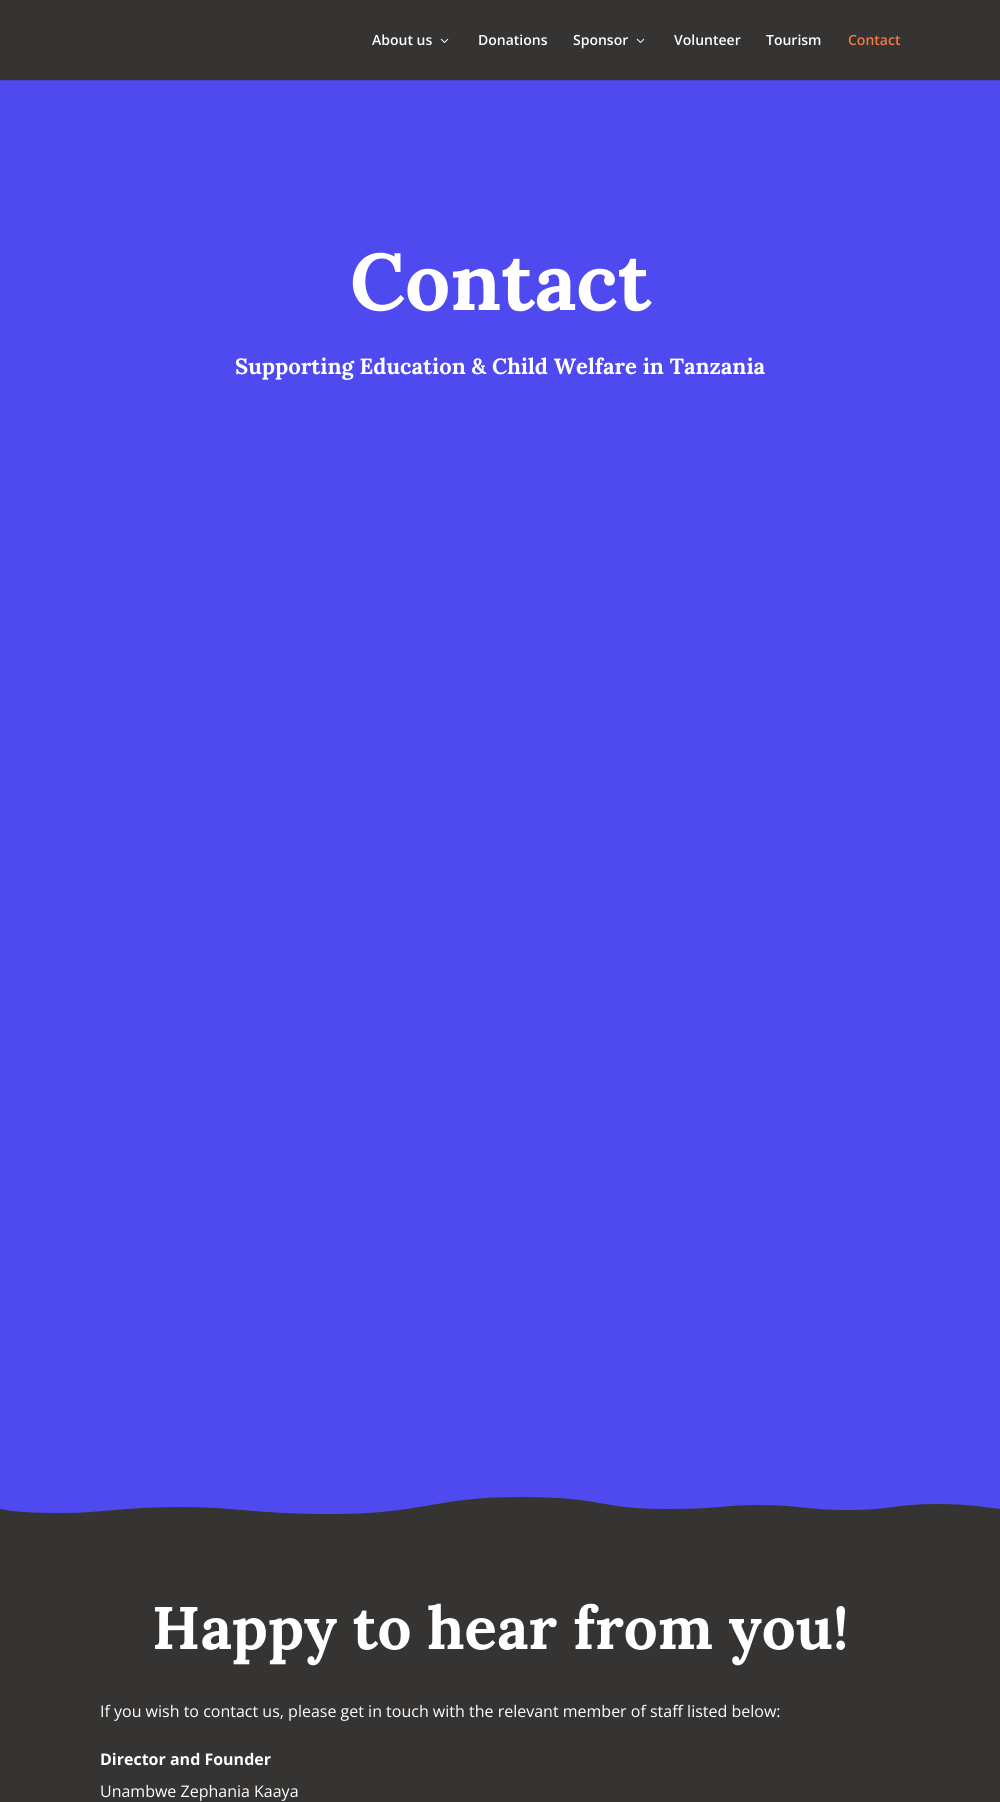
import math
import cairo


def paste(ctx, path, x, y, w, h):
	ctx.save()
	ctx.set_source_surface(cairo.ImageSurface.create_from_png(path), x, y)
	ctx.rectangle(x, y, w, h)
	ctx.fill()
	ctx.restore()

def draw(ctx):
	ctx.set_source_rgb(0.212, 0.204, 0.196)
	ctx.paint()
	ctx.set_source_rgb(0.278, 0.263, 0.843)
	ctx.rectangle(0, 80, 1000, 1)
	ctx.fill()
	ctx.select_font_face('Open Sans SemiBold')
	ctx.set_font_size(14)
	ctx.set_source_rgb(1, 1, 1)
	ctx.move_to(372, 45)
	ctx.show_text('About us')
	paste(ctx, 'media/1.png', 440, 38, 9, 5)
	ctx.move_to(478, 45)
	ctx.show_text('Donations')
	ctx.move_to(573, 45)
	ctx.show_text('Sponsor')
	paste(ctx, 'media/1.png', 636, 38, 9, 5)
	ctx.move_to(674, 45)
	ctx.show_text('Volunteer')
	ctx.move_to(766, 45)
	ctx.show_text('Tourism')
	ctx.set_source_rgb(0.953, 0.467, 0.282)
	ctx.move_to(848, 45)
	ctx.show_text('Contact')
	ctx.set_source_rgb(0.31, 0.29, 0.937)
	ctx.rectangle(0, 81, 1000, 1433)
	ctx.fill()
	ctx.select_font_face('Lora', cairo.FONT_SLANT_NORMAL, cairo.FONT_WEIGHT_BOLD)
	ctx.set_font_size(80)
	ctx.set_source_rgb(1, 1, 1)
	ctx.move_to(350, 310)
	ctx.show_text('Contact')
	ctx.set_font_size(22)
	ctx.move_to(235, 374)
	ctx.show_text('Supporting Education & Child Welfare in Tanzania')
	ctx.set_source_rgb(0.212, 0.204, 0.196)
	ctx.new_path()
	ctx.move_to(1000, 1509)
	ctx.curve_to(984, 1507, 969, 1504, 938, 1504)
	ctx.curve_to(893, 1504, 893, 1510, 848, 1510)
	ctx.curve_to(806, 1510, 801, 1505, 757, 1505)
	ctx.curve_to(722, 1505, 722, 1509, 667, 1509)
	ctx.curve_to(597, 1509, 606, 1497, 520, 1497)
	ctx.curve_to(433, 1497, 425, 1514, 331, 1514)
	ctx.curve_to(252, 1514, 239, 1507, 181, 1507)
	ctx.curve_to(121, 1507, 103, 1513, 63, 1513)
	ctx.curve_to(31, 1513, 16, 1512, 0, 1509)
	ctx.line_to(0, 1517)
	ctx.line_to(1000, 1517)
	ctx.close_path()
	ctx.fill()
	ctx.set_font_size(60)
	ctx.set_source_rgb(1, 1, 1)
	ctx.move_to(152, 1649)
	ctx.show_text('Happy to hear from you!')
	ctx.select_font_face('Open Sans')
	ctx.set_font_size(16)
	ctx.move_to(100, 1717)
	ctx.show_text('If you wish to contact us, please get in touch with the relevant member of staff listed below:')
	ctx.select_font_face('Open Sans', cairo.FONT_SLANT_NORMAL, cairo.FONT_WEIGHT_BOLD)
	ctx.move_to(100, 1765)
	ctx.show_text('Director and Founder')
	ctx.select_font_face('Open Sans')
	ctx.move_to(100, 1797)
	ctx.show_text('Unambwe Zephania Kaaya')


surface = cairo.ImageSurface(cairo.FORMAT_RGB24, 1000, 1802)
ctx = cairo.Context(surface)
options = cairo.FontOptions()
options.set_hint_metrics(cairo.HINT_METRICS_OFF)
options.set_hint_style(cairo.HINT_STYLE_NONE)
ctx.set_font_options(options)
ctx.set_miter_limit(4)
draw(ctx)
surface.write_to_png('image.png')
